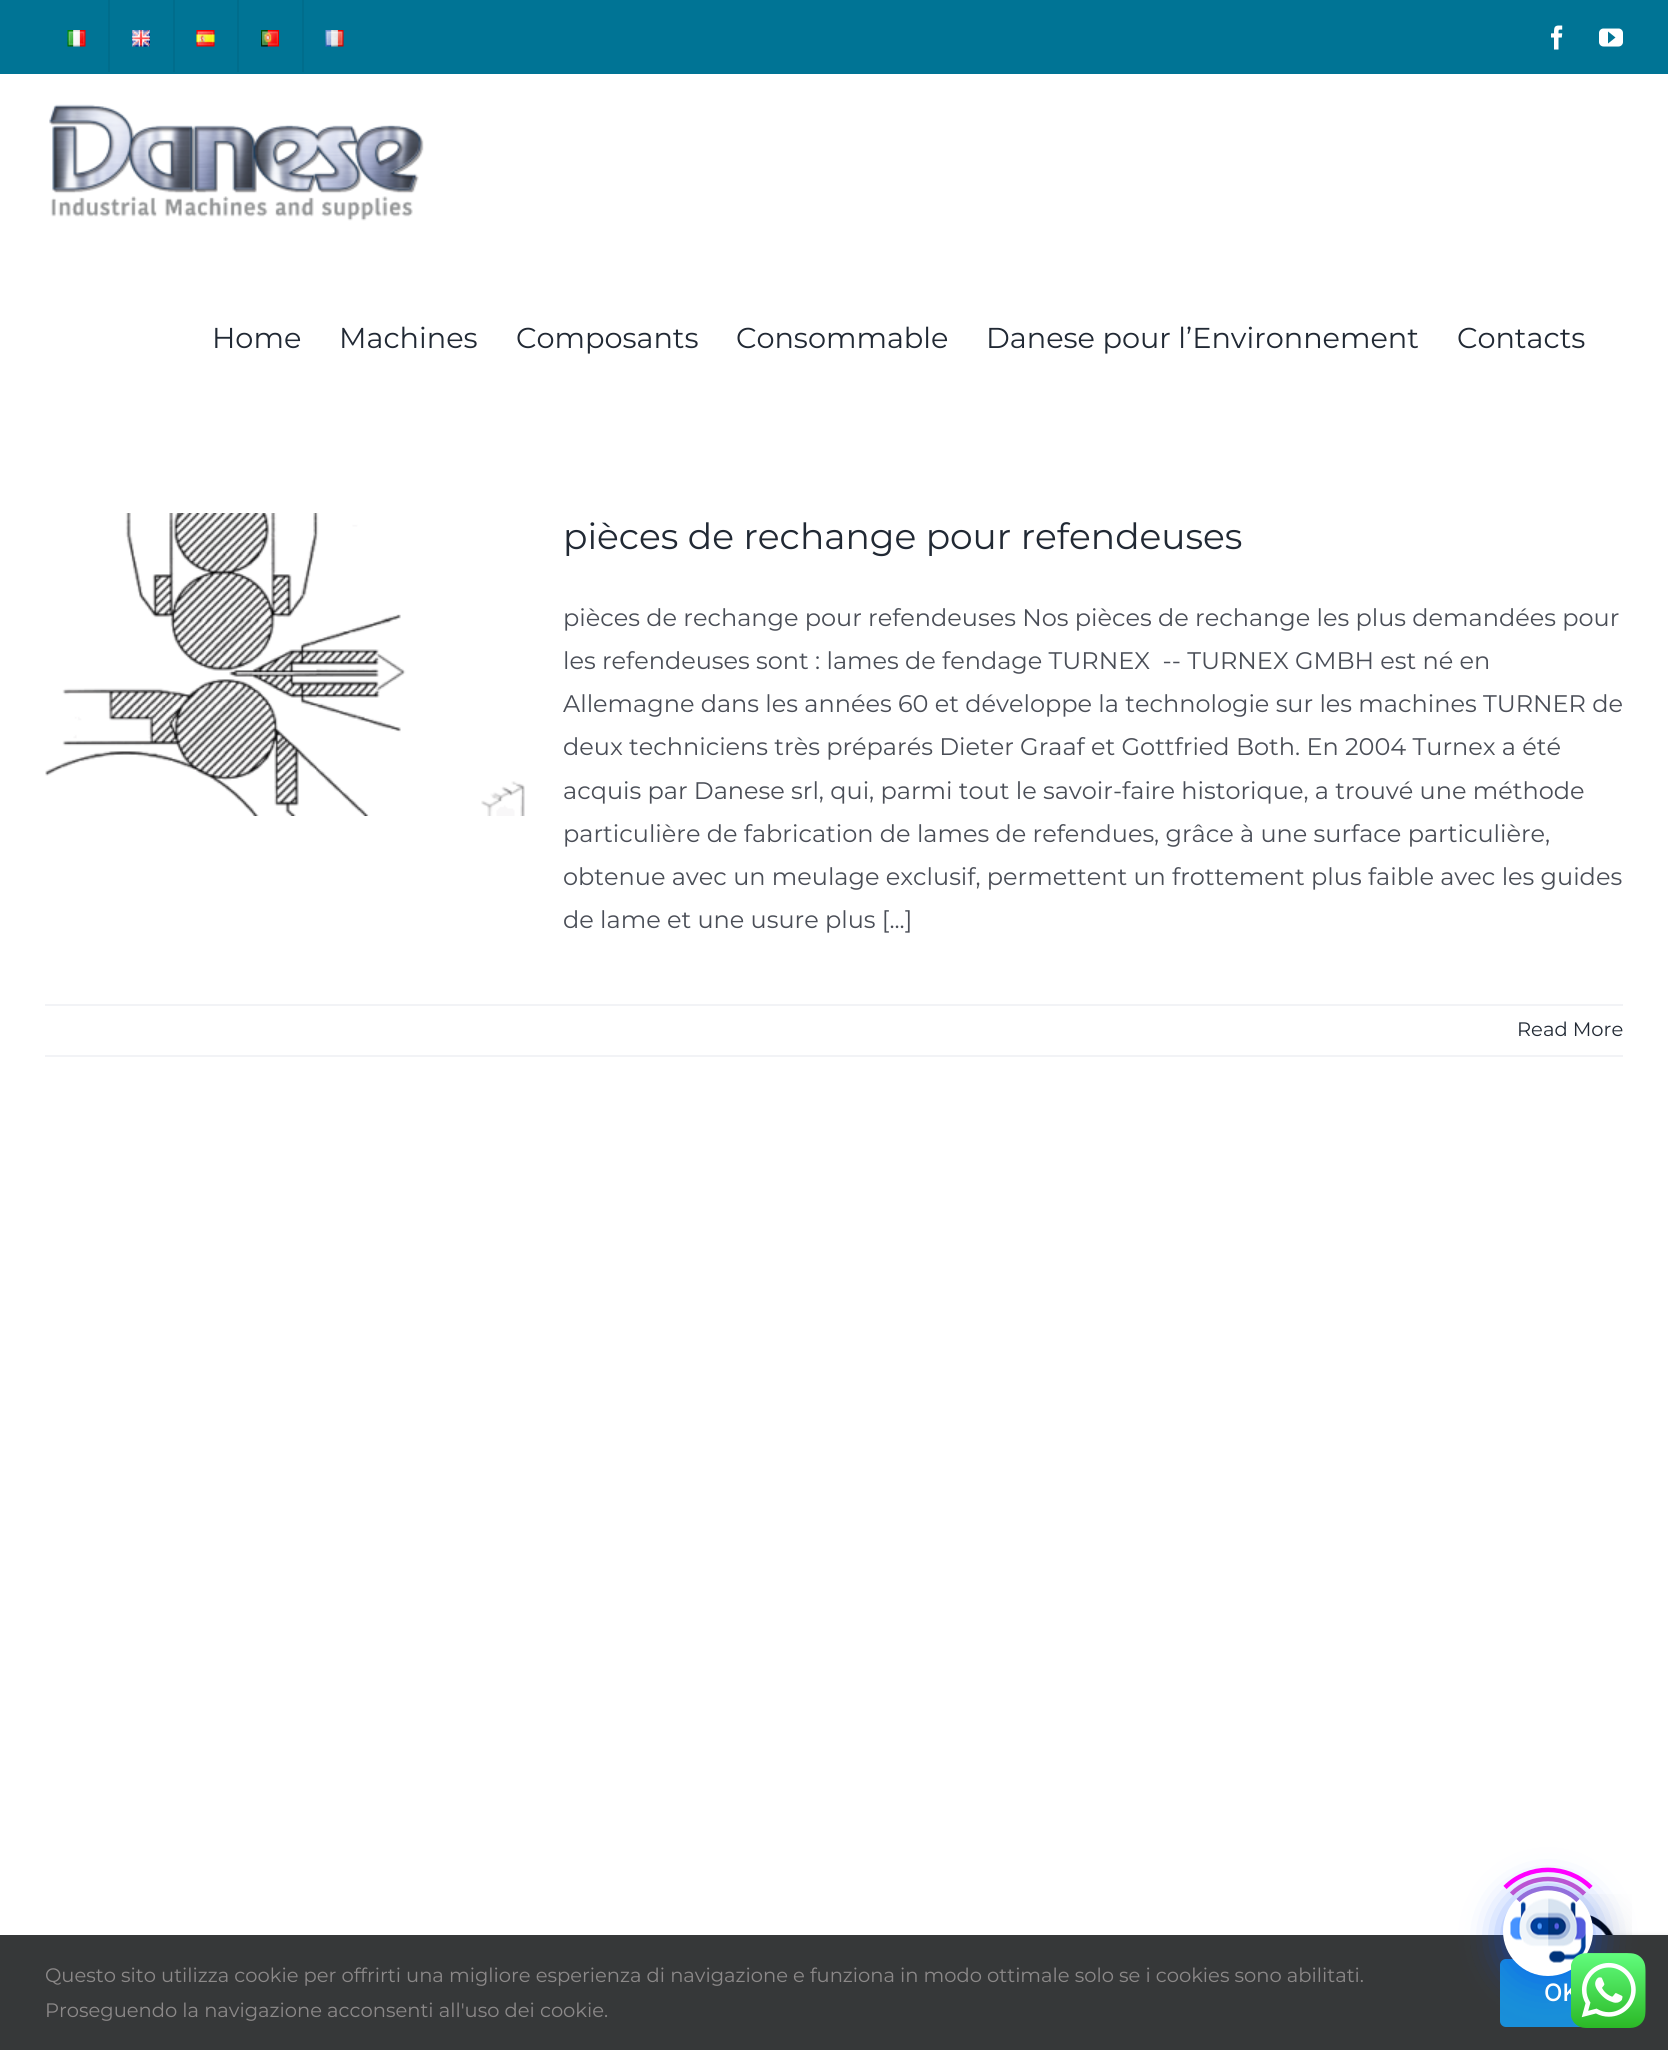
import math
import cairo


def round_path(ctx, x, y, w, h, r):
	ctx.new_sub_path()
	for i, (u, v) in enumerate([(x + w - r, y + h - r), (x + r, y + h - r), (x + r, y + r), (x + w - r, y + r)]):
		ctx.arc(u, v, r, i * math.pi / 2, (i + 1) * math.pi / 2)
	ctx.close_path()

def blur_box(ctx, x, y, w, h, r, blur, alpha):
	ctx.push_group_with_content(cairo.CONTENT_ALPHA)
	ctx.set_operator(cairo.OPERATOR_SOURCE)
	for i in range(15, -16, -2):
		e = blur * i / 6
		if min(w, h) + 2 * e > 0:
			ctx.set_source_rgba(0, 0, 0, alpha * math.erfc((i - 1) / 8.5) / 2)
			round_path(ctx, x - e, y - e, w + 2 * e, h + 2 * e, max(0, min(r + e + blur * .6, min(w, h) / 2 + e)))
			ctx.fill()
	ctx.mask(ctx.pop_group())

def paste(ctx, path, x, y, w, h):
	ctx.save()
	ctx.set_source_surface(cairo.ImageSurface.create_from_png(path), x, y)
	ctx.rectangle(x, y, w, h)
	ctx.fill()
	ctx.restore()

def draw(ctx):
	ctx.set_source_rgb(1, 1, 1)
	ctx.paint()
	ctx.set_source_rgb(0, 0.455, 0.584)
	ctx.rectangle(0, 0, 1668, 74)
	ctx.fill()
	paste(ctx, 'media/1.png', 67, 30, 19, 17)
	ctx.set_source_rgb(0, 0.427, 0.549)
	ctx.rectangle(108, 0, 2, 72)
	ctx.fill()
	paste(ctx, 'media/2.png', 132, 30, 18, 17)
	ctx.rectangle(173, 0, 2, 72)
	ctx.fill()
	paste(ctx, 'media/3.png', 196, 30, 19, 17)
	ctx.rectangle(237, 0, 2, 72)
	ctx.fill()
	paste(ctx, 'media/4.png', 261, 30, 18, 17)
	ctx.rectangle(302, 0, 2, 72)
	ctx.fill()
	paste(ctx, 'media/5.png', 325, 30, 19, 17)
	paste(ctx, 'media/6.png', 1551, 25, 12, 25)
	paste(ctx, 'media/7.png', 1599, 28, 24, 19)
	paste(ctx, 'media/8.png', 49, 104, 375, 117)
	ctx.select_font_face('Montserrat')
	ctx.set_font_size(28.75)
	ctx.set_source_rgb(0.129, 0.161, 0.204)
	for x, y, s in [
		(212, 348, 'Home'),
		(339, 348, 'Machines'),
		(516, 348, 'Composants'),
		(736, 348, 'Consommable'),
		(986, 348, 'Danese pour l’Environnement'),
		(1457, 348, 'Contacts'),
	]:
		ctx.move_to(x, y)
		ctx.show_text(s)
	paste(ctx, 'media/9.png', 45, 513, 480, 303)
	ctx.set_font_size(36)
	ctx.move_to(563, 549)
	ctx.show_text('pièces de rechange pour refendeuses')
	ctx.set_font_size(24)
	ctx.set_source_rgb(0.29, 0.306, 0.341)
	for x, y, s in [
		(563, 626, 'pièces de rechange pour refendeuses Nos pièces de rechange les plus demandées pour'),
		(563, 669, 'les refendeuses sont : lames de fendage TURNEX  -- TURNEX GMBH est né en'),
		(563, 712, 'Allemagne dans les années 60 et développe la technologie sur les machines TURNER de'),
		(563, 755, 'deux techniciens très préparés Dieter Graaf et Gottfried Both. En 2004 Turnex a été'),
		(563, 799, 'acquis par Danese srl, qui, parmi tout le savoir-faire historique, a trouvé une méthode'),
		(563, 842, 'particulière de fabrication de lames de refendues, grâce à une surface particulière,'),
		(563, 885, 'obtenue avec un meulage exclusif, permettent un frottement plus faible avec les guides'),
		(563, 928, 'de lame et une usure plus [...]'),
	]:
		ctx.move_to(x, y)
		ctx.show_text(s)
	ctx.set_source_rgb(0.949, 0.953, 0.961)
	ctx.rectangle(45, 1004, 1578, 2)
	ctx.fill()
	ctx.rectangle(45, 1055, 1578, 2)
	ctx.fill()
	ctx.set_font_size(19.5)
	ctx.set_source_rgb(0.129, 0.161, 0.204)
	ctx.move_to(1517, 1036)
	ctx.show_text('Read More')
	ctx.set_source_rgb(0.502, 0.502, 0.502)
	blur_box(ctx, 1563, 1940, 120, 90, 3, 4, 1)
	paste(ctx, 'media/11.png', 1573, 1894, 59, 41)
	ctx.set_source_rgb(0.212, 0.22, 0.224)
	ctx.rectangle(0, 1935, 1668, 115)
	ctx.fill()
	ctx.set_source_rgb(0.098, 0.561, 0.851)
	round_path(ctx, 1500, 1959, 123, 68, 6)
	ctx.fill()
	ctx.set_source_rgb(0, 0.302, 1)
	blur_box(ctx, 1503, 1892, 90, 90, 45, 18, 0.5)
	ctx.set_source_rgb(1, 1, 1)
	ctx.arc(1548, 1931, 45, 0, 2 * math.pi)
	ctx.fill()
	paste(ctx, 'media/10.png', 1510, 1898, 76, 65)
	ctx.new_path()
	ctx.move_to(1518, 1900.5)
	ctx.curve_to(1534, 1884, 1562, 1884, 1578, 1900.5)
	ctx.set_source_rgb(0.576, 0.439, 0.859)
	ctx.set_line_width(4.5)
	ctx.stroke()
	ctx.new_path()
	ctx.move_to(1511.5, 1894)
	ctx.curve_to(1531.5, 1874, 1564.5, 1874, 1584.5, 1894)
	ctx.set_source_rgb(0.729, 0.333, 0.827)
	ctx.stroke()
	ctx.new_path()
	ctx.move_to(1505, 1887.5)
	ctx.curve_to(1528.5, 1864, 1567.5, 1864, 1591, 1887.5)
	ctx.set_source_rgb(1, 0, 1)
	ctx.stroke()
	ctx.set_source_rgb(0.549, 0.537, 0.537)
	ctx.move_to(45, 1982)
	ctx.show_text('Questo sito utilizza cookie per offrirti una migliore esperienza di navigazione e funziona in modo ottimale solo se i cookies sono abilitati.')
	ctx.move_to(45, 2017)
	ctx.show_text('Proseguendo la navigazione acconsenti all\'uso dei cookie.')
	ctx.select_font_face('Inter Medium')
	ctx.set_font_size(24)
	ctx.set_source_rgb(1, 1, 1)
	ctx.move_to(1544, 2001)
	ctx.show_text('OK')
	paste(ctx, 'media/12.png', 1571, 1953, 75, 75)


surface = cairo.ImageSurface(cairo.FORMAT_RGB24, 1668, 2050)
ctx = cairo.Context(surface)
options = cairo.FontOptions()
options.set_hint_metrics(cairo.HINT_METRICS_OFF)
options.set_hint_style(cairo.HINT_STYLE_NONE)
ctx.set_font_options(options)
ctx.set_miter_limit(4)
draw(ctx)
surface.write_to_png('image.png')
